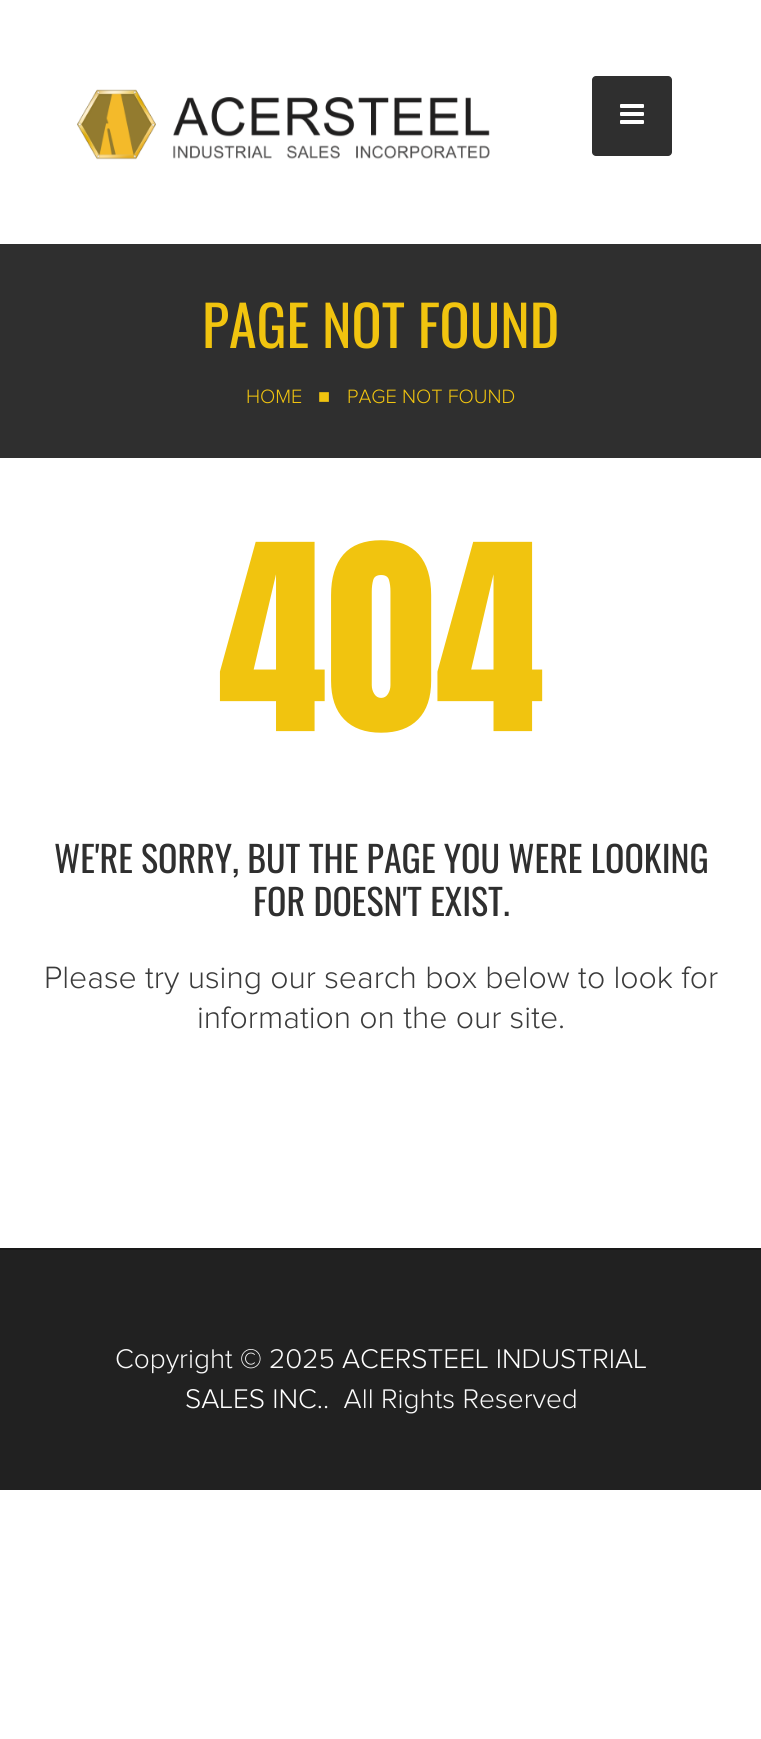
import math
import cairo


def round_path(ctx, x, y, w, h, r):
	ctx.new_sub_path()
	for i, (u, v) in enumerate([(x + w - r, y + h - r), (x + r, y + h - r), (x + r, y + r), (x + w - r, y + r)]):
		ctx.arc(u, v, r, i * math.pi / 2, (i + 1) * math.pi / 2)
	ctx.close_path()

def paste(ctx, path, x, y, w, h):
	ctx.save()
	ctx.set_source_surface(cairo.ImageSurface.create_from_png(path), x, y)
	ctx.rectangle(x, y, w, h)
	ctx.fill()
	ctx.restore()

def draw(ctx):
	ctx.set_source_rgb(1, 1, 1)
	ctx.paint()
	paste(ctx, 'media/1.png', 77, 89, 413, 71)
	ctx.set_source_rgb(0.184, 0.184, 0.184)
	round_path(ctx, 592, 76, 80, 80, 4)
	ctx.fill()
	paste(ctx, 'media/2.png', 620, 104, 24, 20)
	ctx.rectangle(0, 244, 761, 214)
	ctx.fill()
	ctx.select_font_face('Oswald')
	ctx.set_font_size(56)
	ctx.set_source_rgb(0.945, 0.769, 0.059)
	ctx.move_to(202, 348)
	ctx.show_text('PAGE NOT FOUND')
	ctx.select_font_face('Proxima Nova Light')
	ctx.set_font_size(20)
	ctx.move_to(246, 403)
	ctx.show_text('HOME')
	ctx.select_font_face('Liberation Serif')
	ctx.move_to(318, 403)
	ctx.show_text('■')
	ctx.select_font_face('Proxima Nova Light')
	ctx.move_to(347, 403)
	ctx.show_text('PAGE NOT FOUND')
	ctx.select_font_face('Anton')
	ctx.set_font_size(220)
	ctx.move_to(218, 731)
	ctx.show_text('404')
	ctx.select_font_face('Oswald')
	ctx.set_font_size(36)
	ctx.set_source_rgb(0.184, 0.184, 0.184)
	ctx.move_to(54, 873)
	ctx.show_text('WE\'RE SORRY, BUT THE PAGE YOU WERE LOOKING')
	ctx.move_to(253, 916)
	ctx.show_text('FOR DOESN\'T EXIST.')
	ctx.select_font_face('Proxima Nova Light')
	ctx.set_font_size(32)
	ctx.set_source_rgb(0.231, 0.231, 0.231)
	ctx.move_to(44, 988)
	ctx.show_text('Please try using our search box below to look for')
	ctx.move_to(197, 1028)
	ctx.show_text('information on the our site.')
	ctx.set_source_rgb(0.129, 0.129, 0.129)
	ctx.rectangle(0, 1250, 761, 240)
	ctx.fill()
	ctx.set_source_rgb(0.098, 0.098, 0.098)
	ctx.rectangle(0, 1248, 761, 2)
	ctx.fill()
	ctx.set_font_size(28)
	ctx.set_source_rgb(0.976, 0.976, 0.976)
	ctx.move_to(115, 1368)
	ctx.show_text('Copyright © 2025')
	ctx.set_source_rgb(1, 1, 1)
	ctx.move_to(342, 1368)
	ctx.show_text('ACERSTEEL INDUSTRIAL')
	ctx.move_to(185, 1408)
	ctx.show_text('SALES INC.')
	ctx.set_source_rgb(0.976, 0.976, 0.976)
	ctx.move_to(323, 1408)
	ctx.show_text('.  All Rights Reserved')


surface = cairo.ImageSurface(cairo.FORMAT_RGB24, 761, 1739)
ctx = cairo.Context(surface)
options = cairo.FontOptions()
options.set_hint_metrics(cairo.HINT_METRICS_OFF)
options.set_hint_style(cairo.HINT_STYLE_NONE)
ctx.set_font_options(options)
ctx.set_miter_limit(4)
draw(ctx)
surface.write_to_png('image.png')
